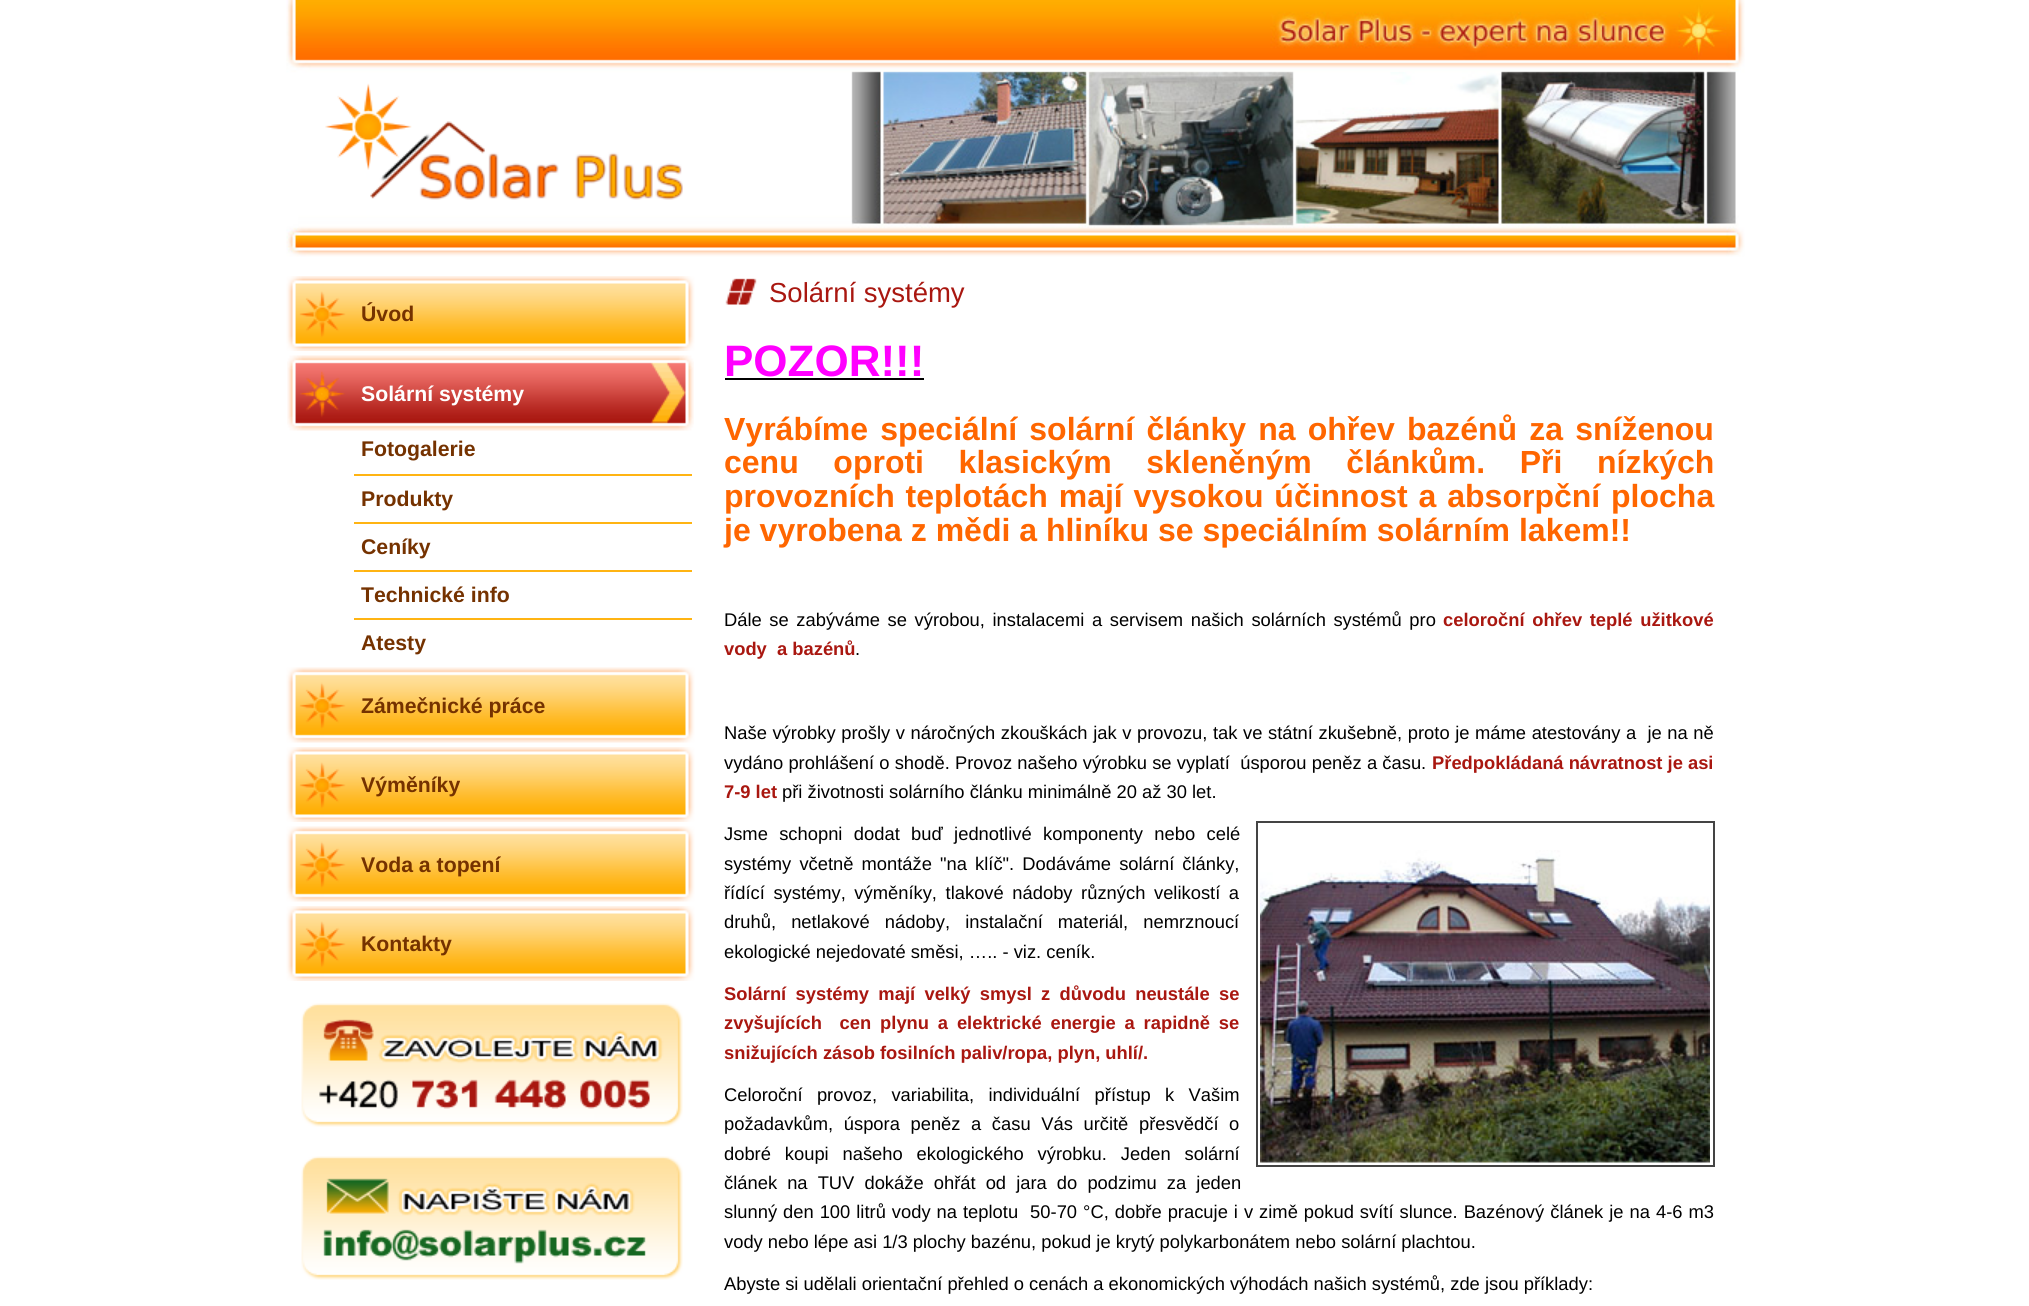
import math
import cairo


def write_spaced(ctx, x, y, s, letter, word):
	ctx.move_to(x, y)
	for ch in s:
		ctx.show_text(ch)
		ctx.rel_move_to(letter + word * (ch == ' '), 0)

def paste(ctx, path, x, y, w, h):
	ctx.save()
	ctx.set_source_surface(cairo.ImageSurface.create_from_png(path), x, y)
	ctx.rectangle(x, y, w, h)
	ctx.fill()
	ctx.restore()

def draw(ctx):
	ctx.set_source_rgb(1, 1, 1)
	ctx.paint()
	paste(ctx, 'media/1.png', 286, 0, 1459, 257)
	paste(ctx, 'media/2.png', 325, 83, 358, 117)
	paste(ctx, 'media/3.png', 286, 276, 409, 75)
	ctx.select_font_face('Liberation Sans', cairo.FONT_SLANT_NORMAL, cairo.FONT_WEIGHT_BOLD)
	ctx.set_font_size(21.25)
	ctx.set_source_rgb(0.459, 0.196, 0)
	ctx.move_to(361, 321)
	ctx.show_text('Úvod')
	paste(ctx, 'media/4.png', 287, 355, 407, 76)
	ctx.set_source_rgb(1, 1, 1)
	ctx.move_to(361, 401)
	ctx.show_text('Solární systémy')
	ctx.set_source_rgb(0.459, 0.196, 0)
	ctx.move_to(361, 456)
	ctx.show_text('Fotogalerie')
	ctx.set_source_rgb(1, 0.706, 0.078)
	ctx.rectangle(354, 474, 338, 2)
	ctx.fill()
	ctx.set_source_rgb(0.459, 0.196, 0)
	ctx.move_to(361, 506)
	ctx.show_text('Produkty')
	ctx.set_source_rgb(1, 0.706, 0.078)
	ctx.rectangle(354, 522, 338, 2)
	ctx.fill()
	ctx.set_source_rgb(0.459, 0.196, 0)
	ctx.move_to(361, 554)
	ctx.show_text('Ceníky')
	ctx.set_source_rgb(1, 0.706, 0.078)
	ctx.rectangle(354, 570, 338, 2)
	ctx.fill()
	ctx.set_source_rgb(0.459, 0.196, 0)
	ctx.move_to(361, 602)
	ctx.show_text('Technické info')
	ctx.set_source_rgb(1, 0.706, 0.078)
	ctx.rectangle(354, 618, 338, 2)
	ctx.fill()
	ctx.set_source_rgb(0.459, 0.196, 0)
	ctx.move_to(361, 650)
	ctx.show_text('Atesty')
	paste(ctx, 'media/5.png', 286, 667, 409, 76)
	ctx.move_to(361, 713)
	ctx.show_text('Zámečnické práce')
	paste(ctx, 'media/3.png', 286, 747, 409, 75)
	ctx.move_to(361, 792)
	ctx.show_text('Výměníky')
	paste(ctx, 'media/5.png', 286, 826, 409, 76)
	ctx.move_to(361, 872)
	ctx.show_text('Voda a topení')
	paste(ctx, 'media/3.png', 286, 906, 409, 75)
	ctx.move_to(361, 951)
	ctx.show_text('Kontakty')
	paste(ctx, 'media/6.png', 301, 1003, 382, 124)
	paste(ctx, 'media/7.png', 301, 1156, 382, 124)
	paste(ctx, 'media/8.png', 725, 278, 32, 27)
	ctx.select_font_face('Liberation Sans')
	ctx.set_font_size(27.5)
	ctx.set_source_rgb(0.663, 0.09, 0.063)
	ctx.move_to(769, 302)
	ctx.show_text('Solární systémy')
	ctx.select_font_face('Liberation Sans', cairo.FONT_SLANT_NORMAL, cairo.FONT_WEIGHT_BOLD)
	ctx.set_font_size(44)
	ctx.set_source_rgb(1, 0, 1)
	ctx.move_to(724, 376)
	ctx.show_text('POZOR!!!')
	ctx.set_source_rgb(0, 0, 0)
	ctx.rectangle(725, 378, 199, 2)
	ctx.fill()
	ctx.set_font_size(32)
	ctx.set_source_rgb(1, 0.4, 0)
	write_spaced(ctx, 724, 440, 'Vyrábíme speciální solární články na ohřev bazénů za sníženou', 0, 3.25)
	write_spaced(ctx, 724, 473, 'cenu oproti klasickým skleněným článkům. Při nízkých', 0, 25.75)
	write_spaced(ctx, 724, 507, 'provozních teplotách mají vysokou účinnost a absorpční plocha', 0, 2)
	ctx.move_to(724, 541)
	ctx.show_text('je vyrobena z mědi a hliníku se speciálním solárním lakem!!')
	ctx.select_font_face('Liberation Sans')
	ctx.set_font_size(18.35)
	ctx.set_source_rgb(0, 0, 0)
	write_spaced(ctx, 724, 626, 'Dále se zabýváme se výrobou, instalacemi a servisem našich solárních systémů pro', 0, 2.5)
	ctx.select_font_face('Liberation Sans', cairo.FONT_SLANT_NORMAL, cairo.FONT_WEIGHT_BOLD)
	ctx.set_source_rgb(0.663, 0.09, 0.063)
	write_spaced(ctx, 1443, 626, 'celoroční ohřev teplé užitkové', 0, 2.5)
	ctx.move_to(724, 655)
	ctx.show_text('vody  a bazénů')
	ctx.select_font_face('Liberation Sans')
	ctx.set_source_rgb(0, 0, 0)
	ctx.move_to(855, 655)
	ctx.show_text('.')
	write_spaced(ctx, 724, 739, 'Naše výrobky prošly v náročných zkouškách jak v provozu, tak ve státní zkušebně, proto je máme atestovány a  je na ně', 0, 0.5)
	write_spaced(ctx, 724, 769, 'vydáno prohlášení o shodě. Provoz našeho výrobku se vyplatí  úsporou peněz a času.', 0, 0.1)
	ctx.select_font_face('Liberation Sans', cairo.FONT_SLANT_NORMAL, cairo.FONT_WEIGHT_BOLD)
	ctx.set_source_rgb(0.663, 0.09, 0.063)
	ctx.move_to(1432, 769)
	ctx.show_text('Předpokládaná návratnost je asi')
	ctx.move_to(724, 798)
	ctx.show_text('7-9 let')
	ctx.select_font_face('Liberation Sans')
	ctx.set_source_rgb(0, 0, 0)
	ctx.move_to(782, 798)
	ctx.show_text('při životnosti solárního článku minimálně 20 až 30 let.')
	write_spaced(ctx, 724, 840, 'Jsme schopni dodat buď jednotlivé komponenty nebo celé', 0, 6.25)
	ctx.rectangle(1257, 822, 457, 344)
	ctx.set_source_rgb(0.267, 0.267, 0.267)
	ctx.stroke()
	paste(ctx, 'media/9.png', 1260, 850, 450, 313)
	ctx.set_source_rgb(0, 0, 0)
	write_spaced(ctx, 724, 870, 'systémy včetně montáže "na klíč". Dodáváme solární články,', 0, 3)
	write_spaced(ctx, 724, 899, 'řídící systémy, výměníky, tlakové nádoby různých velikostí a', 0, 3.5)
	write_spaced(ctx, 724, 928, 'druhů, netlakové nádoby, instalační materiál, nemrznoucí', 0, 10)
	ctx.move_to(724, 958)
	ctx.show_text('ekologické nejedovaté směsi, ….. - viz. ceník.')
	ctx.select_font_face('Liberation Sans', cairo.FONT_SLANT_NORMAL, cairo.FONT_WEIGHT_BOLD)
	ctx.set_source_rgb(0.663, 0.09, 0.063)
	write_spaced(ctx, 724, 1000, 'Solární systémy mají velký smysl z důvodu neustále se', 0, 4.25)
	write_spaced(ctx, 724, 1029, 'zvyšujících  cen plynu a elektrické energie a rapidně se', 0, 3.75)
	ctx.move_to(724, 1059)
	ctx.show_text('snižujících zásob fosilních paliv/ropa, plyn, uhlí/.')
	ctx.select_font_face('Liberation Sans')
	ctx.set_source_rgb(0, 0, 0)
	write_spaced(ctx, 724, 1101, 'Celoroční provoz, variabilita, individuální přístup k Vašim', 0, 9.25)
	write_spaced(ctx, 724, 1130, 'požadavkům, úspora peněz a času Vás určitě přesvědčí o', 0, 5.5)
	write_spaced(ctx, 724, 1160, 'dobré koupi našeho ekologického výrobku. Jeden solární', 0, 8.75)
	write_spaced(ctx, 724, 1189, 'článek na TUV dokáže ohřát od jara do podzimu za jeden', 0, 5)
	write_spaced(ctx, 724, 1218, 'slunný den 100 litrů vody na teplotu  50-70 °C, dobře pracuje i v zimě pokud svítí slunce. Bazénový článek je na 4-6 m3', 0, 0.9)
	ctx.move_to(724, 1248)
	ctx.show_text('vody nebo lépe asi 1/3 plochy bazénu, pokud je krytý polykarbonátem nebo solární plachtou.')
	ctx.move_to(724, 1290)
	ctx.show_text('Abyste si udělali orientační přehled o cenách a ekonomických výhodách našich systémů, zde jsou příklady:')


surface = cairo.ImageSurface(cairo.FORMAT_RGB24, 2029, 1306)
ctx = cairo.Context(surface)
options = cairo.FontOptions()
options.set_hint_metrics(cairo.HINT_METRICS_OFF)
options.set_hint_style(cairo.HINT_STYLE_NONE)
ctx.set_font_options(options)
ctx.set_miter_limit(4)
draw(ctx)
surface.write_to_png('image.png')
